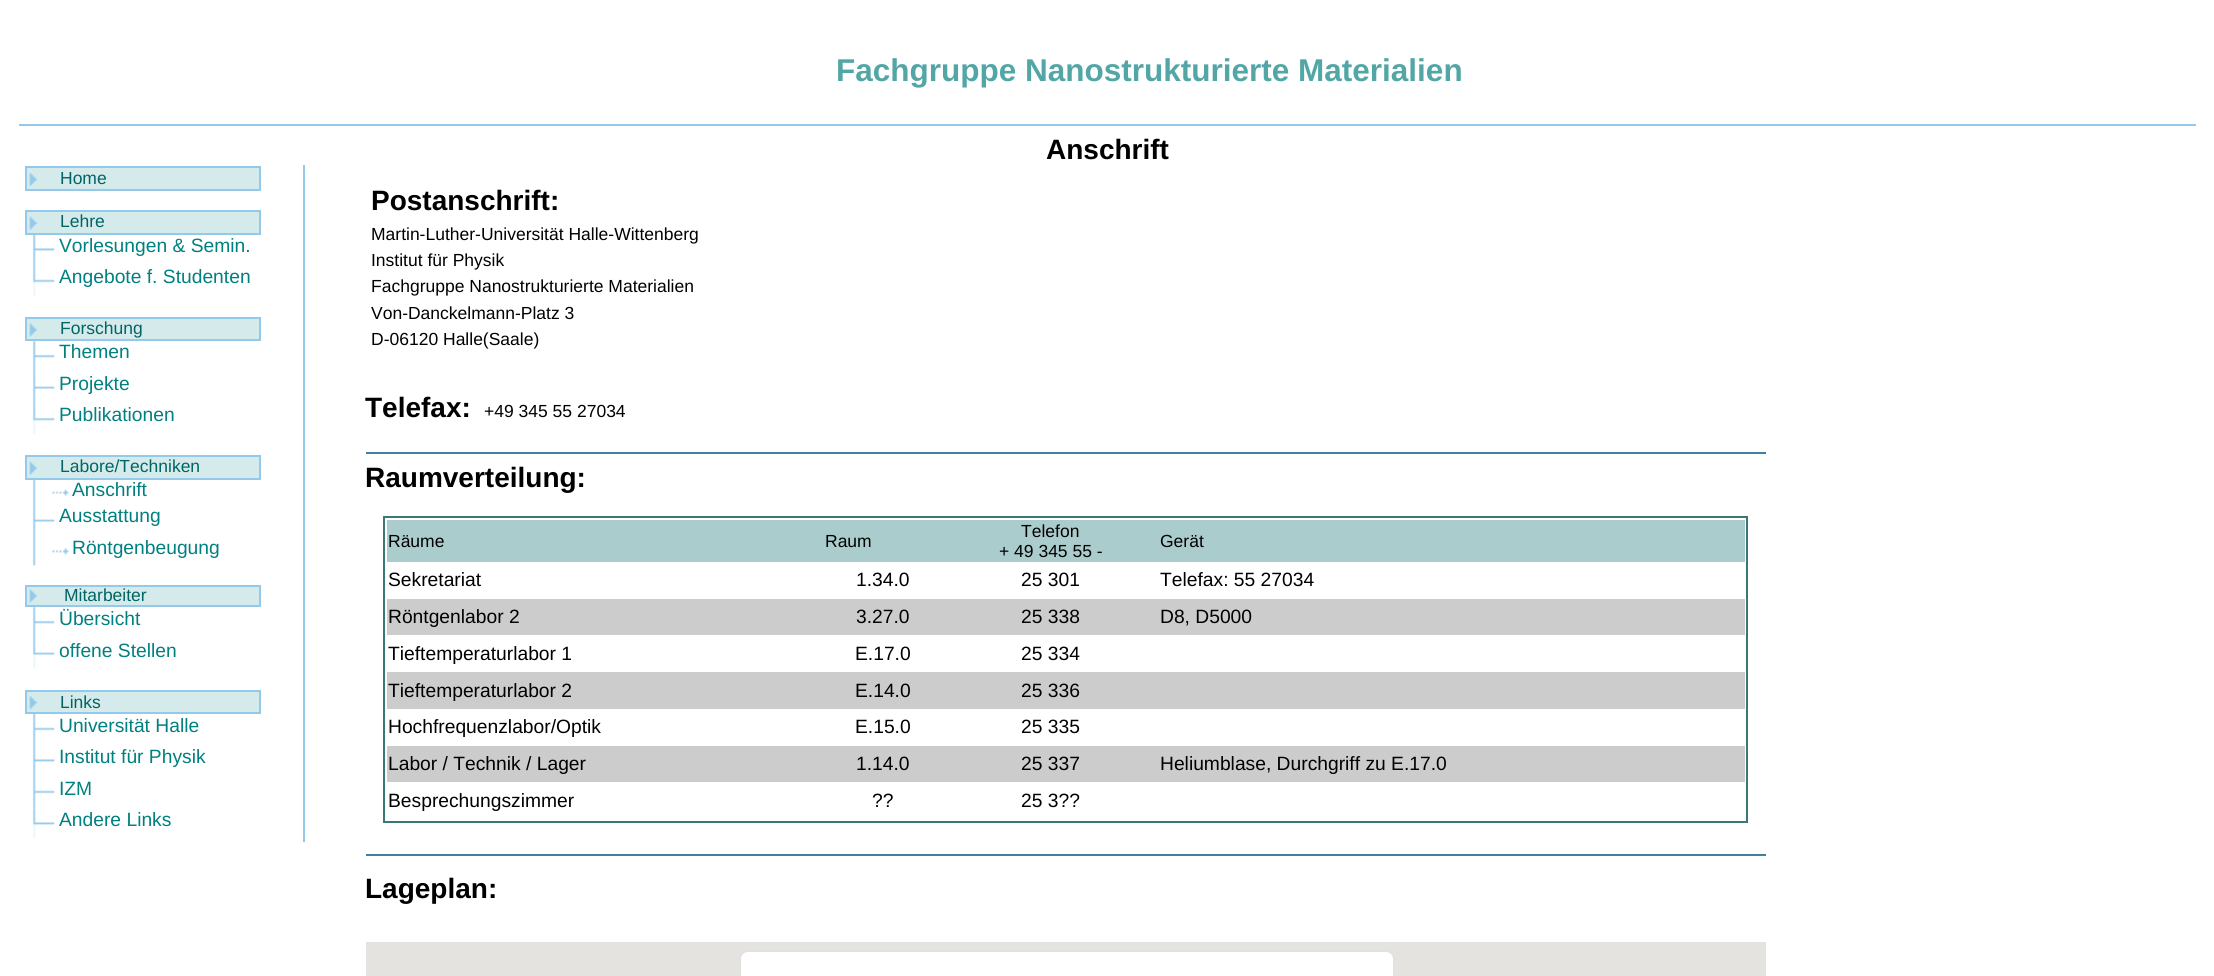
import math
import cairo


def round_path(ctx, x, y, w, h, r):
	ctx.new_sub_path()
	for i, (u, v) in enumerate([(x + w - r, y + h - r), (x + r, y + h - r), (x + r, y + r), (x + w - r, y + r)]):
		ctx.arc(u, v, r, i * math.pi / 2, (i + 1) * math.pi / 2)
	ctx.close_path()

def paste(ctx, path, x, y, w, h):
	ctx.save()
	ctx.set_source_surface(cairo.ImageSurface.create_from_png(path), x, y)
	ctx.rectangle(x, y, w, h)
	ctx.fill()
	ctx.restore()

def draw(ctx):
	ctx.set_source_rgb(1, 1, 1)
	ctx.paint()
	ctx.select_font_face('Liberation Sans', cairo.FONT_SLANT_NORMAL, cairo.FONT_WEIGHT_BOLD)
	ctx.set_font_size(31.5)
	ctx.set_source_rgb(0.325, 0.651, 0.651)
	ctx.move_to(836, 81)
	ctx.show_text('Fachgruppe Nanostrukturierte Materialien')
	ctx.set_source_rgb(0.576, 0.788, 0.918)
	ctx.rectangle(19, 124, 2177, 2)
	ctx.fill()
	ctx.set_font_size(28)
	ctx.set_source_rgb(0, 0, 0)
	ctx.move_to(1046, 159)
	ctx.show_text('Anschrift')
	ctx.set_source_rgb(0.576, 0.788, 0.918)
	ctx.rectangle(303, 165, 2, 677)
	ctx.fill()
	ctx.set_source_rgb(0.835, 0.918, 0.918)
	ctx.rectangle(26, 167, 234, 23)
	ctx.fill_preserve()
	ctx.set_source_rgb(0.576, 0.788, 0.918)
	ctx.stroke()
	paste(ctx, 'media/1.png', 29, 173, 9, 13)
	ctx.select_font_face('Liberation Sans')
	ctx.set_font_size(17.5)
	ctx.set_source_rgb(0, 0.392, 0.392)
	ctx.move_to(60, 184)
	ctx.show_text('Home')
	ctx.set_source_rgb(0.835, 0.918, 0.918)
	ctx.rectangle(26, 211, 234, 23)
	ctx.fill_preserve()
	ctx.set_source_rgb(0.576, 0.788, 0.918)
	ctx.stroke()
	paste(ctx, 'media/2.png', 29, 216, 9, 14)
	ctx.set_source_rgb(0, 0.392, 0.392)
	ctx.move_to(60, 227)
	ctx.show_text('Lehre')
	paste(ctx, 'media/3.png', 32, 235, 23, 31)
	ctx.set_font_size(19.25)
	ctx.set_source_rgb(0, 0.502, 0.502)
	ctx.move_to(59, 252)
	ctx.show_text('Vorlesungen & Semin.')
	paste(ctx, 'media/4.png', 32, 266, 23, 30)
	ctx.move_to(59, 283)
	ctx.show_text('Angebote f. Studenten')
	ctx.set_source_rgb(0.835, 0.918, 0.918)
	ctx.rectangle(26, 318, 234, 22)
	ctx.fill_preserve()
	ctx.set_source_rgb(0.576, 0.788, 0.918)
	ctx.stroke()
	paste(ctx, 'media/5.png', 29, 323, 9, 14)
	ctx.set_font_size(17.5)
	ctx.set_source_rgb(0, 0.392, 0.392)
	ctx.move_to(60, 334)
	ctx.show_text('Forschung')
	paste(ctx, 'media/6.png', 32, 341, 23, 32)
	ctx.set_font_size(19.25)
	ctx.set_source_rgb(0, 0.502, 0.502)
	ctx.move_to(59, 358)
	ctx.show_text('Themen')
	paste(ctx, 'media/7.png', 32, 372, 23, 33)
	ctx.move_to(59, 390)
	ctx.show_text('Projekte')
	paste(ctx, 'media/8.png', 32, 404, 23, 30)
	ctx.move_to(59, 421)
	ctx.show_text('Publikationen')
	ctx.set_source_rgb(0.835, 0.918, 0.918)
	ctx.rectangle(26, 456, 234, 23)
	ctx.fill_preserve()
	ctx.set_source_rgb(0.576, 0.788, 0.918)
	ctx.stroke()
	paste(ctx, 'media/9.png', 29, 461, 9, 14)
	ctx.set_font_size(17.5)
	ctx.set_source_rgb(0, 0.392, 0.392)
	ctx.move_to(60, 472)
	ctx.show_text('Labore/Techniken')
	paste(ctx, 'media/10.png', 32, 480, 37, 26)
	ctx.set_font_size(19.25)
	ctx.set_source_rgb(0, 0.502, 0.502)
	ctx.move_to(72, 496)
	ctx.show_text('Anschrift')
	paste(ctx, 'media/7.png', 32, 505, 23, 33)
	ctx.move_to(59, 522)
	ctx.show_text('Ausstattung')
	paste(ctx, 'media/11.png', 32, 537, 37, 29)
	ctx.move_to(72, 554)
	ctx.show_text('Röntgenbeugung')
	ctx.set_source_rgb(0.835, 0.918, 0.918)
	ctx.rectangle(26, 586, 234, 20)
	ctx.fill_preserve()
	ctx.set_source_rgb(0.576, 0.788, 0.918)
	ctx.stroke()
	paste(ctx, 'media/5.png', 29, 589, 9, 14)
	ctx.set_font_size(17.5)
	ctx.set_source_rgb(0, 0.392, 0.392)
	ctx.move_to(64, 601)
	ctx.show_text('Mitarbeiter')
	paste(ctx, 'media/6.png', 32, 607, 23, 32)
	ctx.set_font_size(19.25)
	ctx.set_source_rgb(0, 0.502, 0.502)
	ctx.move_to(59, 625)
	ctx.show_text('Übersicht')
	paste(ctx, 'media/12.png', 32, 638, 23, 31)
	ctx.move_to(59, 657)
	ctx.show_text('offene Stellen')
	ctx.set_source_rgb(0.835, 0.918, 0.918)
	ctx.rectangle(26, 691, 234, 22)
	ctx.fill_preserve()
	ctx.set_source_rgb(0.576, 0.788, 0.918)
	ctx.stroke()
	paste(ctx, 'media/13.png', 29, 696, 9, 14)
	ctx.set_font_size(17.5)
	ctx.set_source_rgb(0, 0.392, 0.392)
	ctx.move_to(60, 708)
	ctx.show_text('Links')
	paste(ctx, 'media/14.png', 32, 714, 23, 32)
	ctx.set_font_size(19.25)
	ctx.set_source_rgb(0, 0.502, 0.502)
	ctx.move_to(59, 732)
	ctx.show_text('Universität Halle')
	paste(ctx, 'media/15.png', 32, 745, 23, 32)
	ctx.move_to(59, 763)
	ctx.show_text('Institut für Physik')
	paste(ctx, 'media/14.png', 32, 777, 23, 32)
	ctx.move_to(59, 795)
	ctx.show_text('IZM')
	paste(ctx, 'media/16.png', 32, 808, 23, 31)
	ctx.move_to(59, 826)
	ctx.show_text('Andere Links')
	ctx.select_font_face('Liberation Sans', cairo.FONT_SLANT_NORMAL, cairo.FONT_WEIGHT_BOLD)
	ctx.set_font_size(28)
	ctx.set_source_rgb(0, 0, 0)
	ctx.move_to(371, 210)
	ctx.show_text('Postanschrift:')
	ctx.select_font_face('Liberation Sans')
	ctx.set_font_size(17.5)
	for x, y, s in [
		(371, 240, 'Martin-Luther-Universität Halle-Wittenberg'),
		(371, 266, 'Institut für Physik'),
		(371, 292, 'Fachgruppe Nanostrukturierte Materialien'),
		(371, 319, 'Von-Danckelmann-Platz 3'),
		(371, 345, 'D-06120 Halle(Saale)'),
	]:
		ctx.move_to(x, y)
		ctx.show_text(s)
	ctx.select_font_face('Liberation Sans', cairo.FONT_SLANT_NORMAL, cairo.FONT_WEIGHT_BOLD)
	ctx.set_font_size(28)
	ctx.move_to(365, 417)
	ctx.show_text('Telefax:')
	ctx.select_font_face('Liberation Sans')
	ctx.set_font_size(17.5)
	ctx.move_to(484, 417)
	ctx.show_text('+49 345 55 27034')
	ctx.set_source_rgb(0.251, 0.502, 0.627)
	ctx.rectangle(366, 452, 1400, 2)
	ctx.fill()
	ctx.select_font_face('Liberation Sans', cairo.FONT_SLANT_NORMAL, cairo.FONT_WEIGHT_BOLD)
	ctx.set_font_size(28)
	ctx.set_source_rgb(0, 0, 0)
	ctx.move_to(365, 487)
	ctx.show_text('Raumverteilung:')
	ctx.rectangle(384, 517, 1363, 305)
	ctx.set_source_rgb(0.235, 0.467, 0.467)
	ctx.stroke()
	ctx.set_source_rgb(0.667, 0.8, 0.8)
	ctx.rectangle(387, 520, 1358, 42)
	ctx.fill()
	ctx.select_font_face('Liberation Sans')
	ctx.set_font_size(17.5)
	ctx.set_source_rgb(0, 0, 0)
	for x, y, s in [
		(388, 547, 'Räume'),
		(825, 547, 'Raum'),
		(1021, 537, 'Telefon'),
		(999, 557, '+ 49 345 55 -'),
		(1160, 547, 'Gerät'),
	]:
		ctx.move_to(x, y)
		ctx.show_text(s)
	ctx.set_font_size(19.25)
	for x, y, s in [
		(388, 586, 'Sekretariat'),
		(856, 586, '1.34.0'),
		(1021, 586, '25 301'),
		(1160, 586, 'Telefax: 55 27034'),
	]:
		ctx.move_to(x, y)
		ctx.show_text(s)
	ctx.set_source_rgb(0.8, 0.8, 0.8)
	ctx.rectangle(387, 599, 1358, 36)
	ctx.fill()
	ctx.set_source_rgb(0, 0, 0)
	for x, y, s in [
		(388, 623, 'Röntgenlabor 2'),
		(856, 623, '3.27.0'),
		(1021, 623, '25 338'),
		(1160, 623, 'D8, D5000'),
		(388, 660, 'Tieftemperaturlabor 1'),
		(855, 660, 'E.17.0'),
		(1021, 660, '25 334'),
	]:
		ctx.move_to(x, y)
		ctx.show_text(s)
	ctx.set_source_rgb(0.8, 0.8, 0.8)
	ctx.rectangle(387, 672, 1358, 37)
	ctx.fill()
	ctx.set_source_rgb(0, 0, 0)
	for x, y, s in [
		(388, 697, 'Tieftemperaturlabor 2'),
		(855, 697, 'E.14.0'),
		(1021, 697, '25 336'),
		(388, 733, 'Hochfrequenzlabor/Optik'),
		(855, 733, 'E.15.0'),
		(1021, 733, '25 335'),
	]:
		ctx.move_to(x, y)
		ctx.show_text(s)
	ctx.set_source_rgb(0.8, 0.8, 0.8)
	ctx.rectangle(387, 746, 1358, 36)
	ctx.fill()
	ctx.set_source_rgb(0, 0, 0)
	for x, y, s in [
		(388, 770, 'Labor / Technik / Lager'),
		(856, 770, '1.14.0'),
		(1021, 770, '25 337'),
		(1160, 770, 'Heliumblase, Durchgriff zu E.17.0'),
		(388, 807, 'Besprechungszimmer'),
		(872, 807, '??'),
		(1021, 807, '25 3??'),
	]:
		ctx.move_to(x, y)
		ctx.show_text(s)
	ctx.set_source_rgb(0.251, 0.502, 0.627)
	ctx.rectangle(366, 854, 1400, 2)
	ctx.fill()
	ctx.select_font_face('Liberation Sans', cairo.FONT_SLANT_NORMAL, cairo.FONT_WEIGHT_BOLD)
	ctx.set_font_size(28)
	ctx.set_source_rgb(0, 0, 0)
	ctx.move_to(365, 898)
	ctx.show_text('Lageplan:')
	ctx.set_source_rgb(0.898, 0.89, 0.875)
	ctx.rectangle(366, 942, 1400, 34)
	ctx.fill()
	ctx.set_source_rgb(1, 1, 1)
	round_path(ctx, 739, 950, 656, 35, 9)
	ctx.fill()
	round_path(ctx, 740, 951, 654, 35, 8)
	ctx.set_source_rgba(0, 0, 0, 0.12)
	ctx.stroke()


surface = cairo.ImageSurface(cairo.FORMAT_RGB24, 2214, 976)
ctx = cairo.Context(surface)
options = cairo.FontOptions()
options.set_hint_metrics(cairo.HINT_METRICS_OFF)
options.set_hint_style(cairo.HINT_STYLE_NONE)
ctx.set_font_options(options)
ctx.set_miter_limit(4)
draw(ctx)
surface.write_to_png('image.png')
